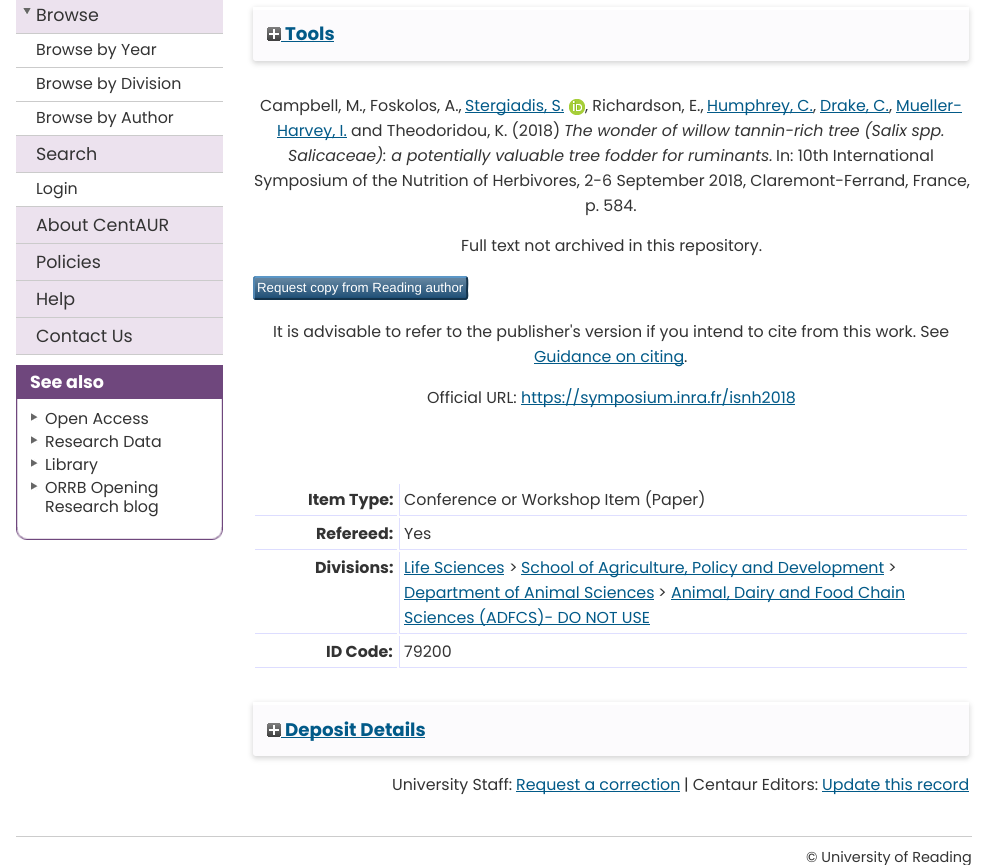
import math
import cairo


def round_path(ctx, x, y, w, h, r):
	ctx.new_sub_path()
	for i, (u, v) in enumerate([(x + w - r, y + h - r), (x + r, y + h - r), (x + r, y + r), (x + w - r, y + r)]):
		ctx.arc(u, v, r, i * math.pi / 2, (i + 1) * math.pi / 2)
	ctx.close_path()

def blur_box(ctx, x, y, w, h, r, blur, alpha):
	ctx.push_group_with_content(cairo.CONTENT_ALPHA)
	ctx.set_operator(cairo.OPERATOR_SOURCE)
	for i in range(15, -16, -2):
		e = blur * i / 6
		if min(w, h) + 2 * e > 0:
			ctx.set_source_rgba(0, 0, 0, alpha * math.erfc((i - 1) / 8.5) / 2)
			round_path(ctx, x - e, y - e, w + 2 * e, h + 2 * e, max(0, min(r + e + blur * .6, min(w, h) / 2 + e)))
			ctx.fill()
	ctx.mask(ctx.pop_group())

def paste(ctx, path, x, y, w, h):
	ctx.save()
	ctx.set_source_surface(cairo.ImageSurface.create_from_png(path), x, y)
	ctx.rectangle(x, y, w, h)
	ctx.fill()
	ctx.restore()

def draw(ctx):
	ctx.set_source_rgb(1, 1, 1)
	ctx.paint()
	ctx.set_source_rgb(0.922, 0.886, 0.933)
	ctx.rectangle(16, 0, 207, 33)
	ctx.fill()
	paste(ctx, 'media/1.png', 23, 8, 8, 7)
	ctx.set_source_rgb(0.796, 0.796, 0.796)
	ctx.rectangle(16, 33, 207, 1)
	ctx.fill()
	ctx.select_font_face('Poppins')
	ctx.set_font_size(17.5)
	ctx.set_source_rgb(0.2, 0.2, 0.2)
	ctx.move_to(36, 21)
	ctx.show_text('Browse')
	ctx.set_source_rgb(0.796, 0.796, 0.796)
	ctx.rectangle(16, 67, 207, 1)
	ctx.fill()
	ctx.set_font_size(15.85)
	ctx.set_source_rgb(0.2, 0.2, 0.2)
	ctx.move_to(36, 55)
	ctx.show_text('Browse by Year')
	ctx.set_source_rgb(0.796, 0.796, 0.796)
	ctx.rectangle(16, 101, 207, 1)
	ctx.fill()
	ctx.set_source_rgb(0.2, 0.2, 0.2)
	ctx.move_to(36, 89)
	ctx.show_text('Browse by Division')
	ctx.set_source_rgb(0.796, 0.796, 0.796)
	ctx.rectangle(16, 135, 207, 1)
	ctx.fill()
	ctx.set_source_rgb(0.2, 0.2, 0.2)
	ctx.move_to(36, 123)
	ctx.show_text('Browse by Author')
	ctx.set_source_rgb(0.922, 0.886, 0.933)
	ctx.rectangle(16, 136, 207, 36)
	ctx.fill()
	ctx.set_source_rgb(0.796, 0.796, 0.796)
	ctx.rectangle(16, 172, 207, 1)
	ctx.fill()
	ctx.set_font_size(17.5)
	ctx.set_source_rgb(0.2, 0.2, 0.2)
	ctx.move_to(36, 160)
	ctx.show_text('Search')
	ctx.set_source_rgb(0.796, 0.796, 0.796)
	ctx.rectangle(16, 206, 207, 1)
	ctx.fill()
	ctx.set_font_size(15.85)
	ctx.set_source_rgb(0.2, 0.2, 0.2)
	ctx.move_to(36, 194)
	ctx.show_text('Login')
	ctx.set_source_rgb(0.922, 0.886, 0.933)
	ctx.rectangle(16, 207, 207, 36)
	ctx.fill()
	ctx.set_source_rgb(0.796, 0.796, 0.796)
	ctx.rectangle(16, 243, 207, 1)
	ctx.fill()
	ctx.set_font_size(17.5)
	ctx.set_source_rgb(0.2, 0.2, 0.2)
	ctx.move_to(36, 231)
	ctx.show_text('About CentAUR')
	ctx.set_source_rgb(0.922, 0.886, 0.933)
	ctx.rectangle(16, 244, 207, 36)
	ctx.fill()
	ctx.set_source_rgb(0.796, 0.796, 0.796)
	ctx.rectangle(16, 280, 207, 1)
	ctx.fill()
	ctx.set_source_rgb(0.2, 0.2, 0.2)
	ctx.move_to(36, 268)
	ctx.show_text('Policies')
	ctx.set_source_rgb(0.922, 0.886, 0.933)
	ctx.rectangle(16, 281, 207, 36)
	ctx.fill()
	ctx.set_source_rgb(0.796, 0.796, 0.796)
	ctx.rectangle(16, 317, 207, 1)
	ctx.fill()
	ctx.set_source_rgb(0.2, 0.2, 0.2)
	ctx.move_to(36, 305)
	ctx.show_text('Help')
	ctx.set_source_rgb(0.922, 0.886, 0.933)
	ctx.rectangle(16, 318, 207, 36)
	ctx.fill()
	ctx.set_source_rgb(0.796, 0.796, 0.796)
	ctx.rectangle(16, 354, 207, 1)
	ctx.fill()
	ctx.set_source_rgb(0.2, 0.2, 0.2)
	ctx.move_to(36, 342)
	ctx.show_text('Contact Us')
	paste(ctx, 'media/2.png', 16, 527, 207, 13)
	paste(ctx, 'media/3.png', 16, 399, 207, 131)
	ctx.set_source_rgb(0.435, 0.278, 0.49)
	ctx.rectangle(16, 365, 207, 34)
	ctx.fill()
	ctx.select_font_face('Poppins', cairo.FONT_SLANT_NORMAL, cairo.FONT_WEIGHT_BOLD)
	ctx.set_source_rgb(1, 1, 1)
	ctx.move_to(30, 388)
	ctx.show_text('See also')
	paste(ctx, 'media/4.png', 31, 413, 7, 9)
	ctx.select_font_face('Poppins')
	ctx.set_font_size(15.85)
	ctx.set_source_rgb(0.2, 0.2, 0.2)
	ctx.move_to(45, 424)
	ctx.show_text('Open Access')
	paste(ctx, 'media/4.png', 31, 436, 7, 9)
	ctx.move_to(45, 447)
	ctx.show_text('Research Data')
	paste(ctx, 'media/4.png', 31, 459, 7, 9)
	ctx.move_to(45, 470)
	ctx.show_text('Library')
	paste(ctx, 'media/4.png', 31, 482, 7, 9)
	ctx.move_to(45, 493)
	ctx.show_text('ORRB Opening')
	ctx.move_to(45, 512)
	ctx.show_text('Research blog')
	ctx.save()
	ctx.set_fill_rule(cairo.FILL_RULE_EVEN_ODD)
	ctx.new_path()
	ctx.move_to(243, 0)
	ctx.line_to(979, 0)
	ctx.line_to(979, 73)
	ctx.line_to(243, 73)
	ctx.close_path()
	ctx.move_to(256, 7)
	ctx.line_to(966, 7)
	ctx.curve_to(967.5, 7, 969, 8.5, 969, 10)
	ctx.line_to(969, 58)
	ctx.curve_to(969, 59.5, 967.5, 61, 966, 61)
	ctx.line_to(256, 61)
	ctx.curve_to(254.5, 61, 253, 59.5, 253, 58)
	ctx.line_to(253, 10)
	ctx.curve_to(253, 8.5, 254.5, 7, 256, 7)
	ctx.close_path()
	ctx.clip()
	ctx.set_source_rgb(0.392, 0.392, 0.392)
	blur_box(ctx, 253, 9, 716, 54, 3, 3, 0.3)
	ctx.restore()
	ctx.set_source_rgba(0.922, 0.886, 0.933, 0.16)
	round_path(ctx, 253, 7, 716, 54, 3)
	ctx.fill()
	ctx.set_source_rgba(1, 1, 1, 0.94)
	ctx.rectangle(253, 7, 716, 3)
	ctx.fill()
	paste(ctx, 'media/5.png', 267, 27, 14, 14)
	ctx.select_font_face('Poppins', cairo.FONT_SLANT_NORMAL, cairo.FONT_WEIGHT_BOLD)
	ctx.set_font_size(18.25)
	ctx.set_source_rgb(0.008, 0.353, 0.533)
	ctx.move_to(285, 40)
	ctx.show_text('Tools')
	ctx.rectangle(281, 41, 53, 1)
	ctx.fill()
	ctx.select_font_face('Poppins')
	ctx.set_font_size(15.85)
	ctx.set_source_rgb(0.2, 0.2, 0.2)
	ctx.move_to(260, 111)
	ctx.show_text('Campbell, M., Foskolos, A.,')
	ctx.set_source_rgb(0.008, 0.353, 0.533)
	ctx.rectangle(465, 112, 99, 1)
	ctx.fill()
	ctx.move_to(465, 111)
	ctx.show_text('Stergiadis, S.')
	ctx.set_source_rgb(0.2, 0.2, 0.2)
	ctx.move_to(585, 111)
	ctx.show_text(', Richardson, E.,')
	paste(ctx, 'media/6.png', 569, 99, 16, 16)
	ctx.set_source_rgb(0.008, 0.353, 0.533)
	ctx.rectangle(707, 112, 106, 1)
	ctx.fill()
	ctx.move_to(707, 111)
	ctx.show_text('Humphrey, C.')
	ctx.set_source_rgb(0.2, 0.2, 0.2)
	ctx.move_to(813, 111)
	ctx.show_text(',')
	ctx.set_source_rgb(0.008, 0.353, 0.533)
	ctx.rectangle(820, 112, 69, 1)
	ctx.fill()
	ctx.move_to(820, 111)
	ctx.show_text('Drake, C.')
	ctx.set_source_rgb(0.2, 0.2, 0.2)
	ctx.move_to(889, 111)
	ctx.show_text(',')
	ctx.set_source_rgb(0.008, 0.353, 0.533)
	ctx.rectangle(896, 112, 66, 1)
	ctx.fill()
	ctx.move_to(896, 111)
	ctx.show_text('Mueller-')
	ctx.rectangle(277, 137, 70, 1)
	ctx.fill()
	ctx.move_to(277, 136)
	ctx.show_text('Harvey, I.')
	ctx.set_source_rgb(0.2, 0.2, 0.2)
	ctx.move_to(351, 136)
	ctx.show_text('and Theodoridou, K. (2018)')
	ctx.select_font_face('Poppins', cairo.FONT_SLANT_ITALIC)
	ctx.move_to(564, 136)
	ctx.show_text('The wonder of willow tannin-rich tree (Salix spp.')
	ctx.move_to(288, 161)
	ctx.show_text('Salicaceae): a potentially valuable tree fodder for ruminants.')
	ctx.select_font_face('Poppins')
	for x, y, s in [
		(776, 161, 'In: 10th International'),
		(254, 186, 'Symposium of the Nutrition of Herbivores, 2-6 September 2018, Claremont-Ferrand, France,'),
		(585, 211, 'p. 584.'),
		(461, 251, 'Full text not archived in this repository.'),
	]:
		ctx.move_to(x, y)
		ctx.show_text(s)
	ctx.set_source_rgb(0.122, 0.31, 0.463)
	round_path(ctx, 253, 276, 215, 24, 3)
	ctx.fill()
	paste(ctx, 'media/7.png', 253, 278, 215, 19)
	ctx.new_path()
	ctx.move_to(254.5, 277.5)
	ctx.line_to(256, 277)
	ctx.line_to(465, 277)
	ctx.line_to(466.5, 277.5)
	ctx.set_source_rgb(0.357, 0.592, 0.78)
	ctx.stroke()
	ctx.new_path()
	ctx.move_to(466.5, 277.5)
	ctx.curve_to(468, 279, 467, 288.5, 467, 291)
	ctx.curve_to(467, 292.5, 468.5, 299, 465, 299)
	ctx.line_to(256, 299)
	ctx.line_to(254.5, 298.5)
	ctx.set_source_rgb(0.075, 0.196, 0.29)
	ctx.stroke()
	ctx.new_path()
	ctx.move_to(254.5, 298.5)
	ctx.curve_to(254, 298, 254, 297.5, 254, 297)
	ctx.line_to(254, 279)
	ctx.curve_to(254, 278.5, 254, 278, 254.5, 277.5)
	ctx.set_source_rgb(0.322, 0.529, 0.702)
	ctx.stroke()
	ctx.select_font_face('Liberation Sans')
	ctx.set_font_size(13.3)
	ctx.set_source_rgb(1, 1, 1)
	ctx.move_to(257, 292)
	ctx.show_text('Request copy from Reading author')
	ctx.select_font_face('Poppins')
	ctx.set_font_size(15.85)
	ctx.set_source_rgb(0.2, 0.2, 0.2)
	ctx.move_to(273, 337)
	ctx.show_text('It is advisable to refer to the publisher\'s version if you intend to cite from this work. See')
	ctx.set_source_rgb(0.008, 0.353, 0.533)
	ctx.rectangle(534, 363, 150, 1)
	ctx.fill()
	ctx.move_to(534, 362)
	ctx.show_text('Guidance on citing')
	ctx.set_source_rgb(0.2, 0.2, 0.2)
	ctx.move_to(684, 362)
	ctx.show_text('.')
	ctx.move_to(427, 403)
	ctx.show_text('Official URL:')
	ctx.set_source_rgb(0.008, 0.353, 0.533)
	ctx.rectangle(521, 404, 274, 1)
	ctx.fill()
	ctx.move_to(521, 403)
	ctx.show_text('https://symposium.inra.fr/isnh2018')
	ctx.set_source_rgb(0.867, 0.867, 1)
	ctx.rectangle(255, 515, 142, 1)
	ctx.fill()
	ctx.select_font_face('Poppins', cairo.FONT_SLANT_NORMAL, cairo.FONT_WEIGHT_BOLD)
	ctx.set_source_rgb(0.2, 0.2, 0.2)
	ctx.move_to(308, 505)
	ctx.show_text('Item Type:')
	ctx.set_source_rgb(0.875, 0.875, 1)
	ctx.new_path()
	ctx.move_to(967, 516)
	ctx.line_to(399, 516)
	ctx.line_to(400, 515)
	ctx.line_to(967, 515)
	ctx.close_path()
	ctx.fill()
	ctx.set_source_rgba(0.733, 0.733, 1, 0.48)
	ctx.new_path()
	ctx.move_to(399, 516)
	ctx.line_to(399, 484)
	ctx.line_to(400, 484)
	ctx.line_to(400, 515)
	ctx.close_path()
	ctx.fill()
	ctx.select_font_face('Poppins')
	ctx.set_source_rgb(0.2, 0.2, 0.2)
	ctx.move_to(404, 505)
	ctx.show_text('Conference or Workshop Item (Paper)')
	ctx.set_source_rgb(0.867, 0.867, 1)
	ctx.rectangle(255, 549, 142, 1)
	ctx.fill()
	ctx.select_font_face('Poppins', cairo.FONT_SLANT_NORMAL, cairo.FONT_WEIGHT_BOLD)
	ctx.set_source_rgb(0.2, 0.2, 0.2)
	ctx.move_to(316, 539)
	ctx.show_text('Refereed:')
	ctx.set_source_rgb(0.875, 0.875, 1)
	ctx.new_path()
	ctx.move_to(967, 550)
	ctx.line_to(399, 550)
	ctx.line_to(400, 549)
	ctx.line_to(967, 549)
	ctx.close_path()
	ctx.fill()
	ctx.set_source_rgba(0.733, 0.733, 1, 0.48)
	ctx.new_path()
	ctx.move_to(399, 550)
	ctx.line_to(399, 518)
	ctx.line_to(400, 518)
	ctx.line_to(400, 549)
	ctx.close_path()
	ctx.fill()
	ctx.select_font_face('Poppins')
	ctx.set_source_rgb(0.2, 0.2, 0.2)
	ctx.move_to(404, 539)
	ctx.show_text('Yes')
	ctx.set_source_rgb(0.867, 0.867, 1)
	ctx.rectangle(255, 633, 142, 1)
	ctx.fill()
	ctx.select_font_face('Poppins', cairo.FONT_SLANT_NORMAL, cairo.FONT_WEIGHT_BOLD)
	ctx.set_source_rgb(0.2, 0.2, 0.2)
	ctx.move_to(315, 573)
	ctx.show_text('Divisions:')
	ctx.set_source_rgb(0.875, 0.875, 1)
	ctx.new_path()
	ctx.move_to(967, 634)
	ctx.line_to(399, 634)
	ctx.line_to(400, 633)
	ctx.line_to(967, 633)
	ctx.close_path()
	ctx.fill()
	ctx.set_source_rgba(0.733, 0.733, 1, 0.48)
	ctx.new_path()
	ctx.move_to(399, 634)
	ctx.line_to(399, 552)
	ctx.line_to(400, 552)
	ctx.line_to(400, 633)
	ctx.close_path()
	ctx.fill()
	ctx.select_font_face('Poppins')
	ctx.set_source_rgb(0.008, 0.353, 0.533)
	ctx.move_to(404, 573)
	ctx.show_text('Life Sciences')
	ctx.rectangle(404, 574, 100, 1)
	ctx.fill()
	ctx.set_source_rgb(0.2, 0.2, 0.2)
	ctx.move_to(509, 573)
	ctx.show_text('>')
	ctx.set_source_rgb(0.008, 0.353, 0.533)
	ctx.rectangle(521, 574, 363, 1)
	ctx.fill()
	ctx.move_to(521, 573)
	ctx.show_text('School of Agriculture, Policy and Development')
	ctx.set_source_rgb(0.2, 0.2, 0.2)
	ctx.move_to(888, 573)
	ctx.show_text('>')
	ctx.set_source_rgb(0.008, 0.353, 0.533)
	ctx.rectangle(404, 599, 250, 1)
	ctx.fill()
	ctx.move_to(404, 598)
	ctx.show_text('Department of Animal Sciences')
	ctx.set_source_rgb(0.2, 0.2, 0.2)
	ctx.move_to(658, 598)
	ctx.show_text('>')
	ctx.set_source_rgb(0.008, 0.353, 0.533)
	ctx.rectangle(671, 599, 234, 1)
	ctx.fill()
	ctx.move_to(671, 598)
	ctx.show_text('Animal, Dairy and Food Chain')
	ctx.rectangle(404, 624, 246, 1)
	ctx.fill()
	ctx.move_to(404, 623)
	ctx.show_text('Sciences (ADFCS)- DO NOT USE')
	ctx.set_source_rgb(0.867, 0.867, 1)
	ctx.rectangle(255, 667, 142, 1)
	ctx.fill()
	ctx.select_font_face('Poppins', cairo.FONT_SLANT_NORMAL, cairo.FONT_WEIGHT_BOLD)
	ctx.set_source_rgb(0.2, 0.2, 0.2)
	ctx.move_to(326, 657)
	ctx.show_text('ID Code:')
	ctx.set_source_rgb(0.875, 0.875, 1)
	ctx.new_path()
	ctx.move_to(967, 668)
	ctx.line_to(399, 668)
	ctx.line_to(400, 667)
	ctx.line_to(967, 667)
	ctx.close_path()
	ctx.fill()
	ctx.set_source_rgba(0.733, 0.733, 1, 0.48)
	ctx.new_path()
	ctx.move_to(399, 668)
	ctx.line_to(399, 636)
	ctx.line_to(400, 636)
	ctx.line_to(400, 667)
	ctx.close_path()
	ctx.fill()
	ctx.select_font_face('Poppins')
	ctx.set_source_rgb(0.2, 0.2, 0.2)
	ctx.move_to(404, 657)
	ctx.show_text('79200')
	ctx.save()
	ctx.set_fill_rule(cairo.FILL_RULE_EVEN_ODD)
	ctx.new_path()
	ctx.move_to(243, 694)
	ctx.line_to(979, 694)
	ctx.line_to(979, 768)
	ctx.line_to(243, 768)
	ctx.close_path()
	ctx.move_to(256, 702)
	ctx.line_to(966, 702)
	ctx.curve_to(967.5, 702, 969, 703.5, 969, 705)
	ctx.line_to(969, 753)
	ctx.curve_to(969, 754.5, 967.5, 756, 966, 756)
	ctx.line_to(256, 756)
	ctx.curve_to(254.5, 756, 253, 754.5, 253, 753)
	ctx.line_to(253, 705)
	ctx.curve_to(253, 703.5, 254.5, 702, 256, 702)
	ctx.close_path()
	ctx.clip()
	ctx.set_source_rgb(0.392, 0.392, 0.392)
	blur_box(ctx, 253, 704, 716, 54, 3, 3, 0.3)
	ctx.restore()
	ctx.set_source_rgba(0.922, 0.886, 0.933, 0.16)
	round_path(ctx, 253, 702, 716, 54, 3)
	ctx.fill()
	ctx.set_source_rgba(1, 1, 1, 0.94)
	ctx.rectangle(253, 702, 716, 3)
	ctx.fill()
	paste(ctx, 'media/5.png', 267, 723, 14, 14)
	ctx.set_source_rgb(0.008, 0.353, 0.533)
	ctx.rectangle(281, 737, 144, 1)
	ctx.fill()
	ctx.select_font_face('Poppins', cairo.FONT_SLANT_NORMAL, cairo.FONT_WEIGHT_BOLD)
	ctx.set_font_size(18.25)
	ctx.move_to(285, 736)
	ctx.show_text('Deposit Details')
	ctx.select_font_face('Poppins')
	ctx.set_font_size(15.85)
	ctx.set_source_rgb(0.2, 0.2, 0.2)
	ctx.move_to(392, 790)
	ctx.show_text('University Staff:')
	ctx.set_source_rgb(0.008, 0.353, 0.533)
	ctx.rectangle(516, 791, 164, 1)
	ctx.fill()
	ctx.move_to(516, 790)
	ctx.show_text('Request a correction')
	ctx.set_source_rgb(0.2, 0.2, 0.2)
	ctx.move_to(684, 790)
	ctx.show_text('| Centaur Editors:')
	ctx.set_source_rgb(0.008, 0.353, 0.533)
	ctx.rectangle(822, 791, 147, 1)
	ctx.fill()
	ctx.move_to(822, 790)
	ctx.show_text('Update this record')
	ctx.set_source_rgb(0.8, 0.8, 0.8)
	ctx.rectangle(16, 836, 956, 1)
	ctx.fill()
	ctx.set_font_size(14.4)
	ctx.set_source_rgb(0.2, 0.2, 0.2)
	ctx.move_to(806, 862)
	ctx.show_text('© University of Reading')


surface = cairo.ImageSurface(cairo.FORMAT_RGB24, 988, 865)
ctx = cairo.Context(surface)
options = cairo.FontOptions()
options.set_hint_metrics(cairo.HINT_METRICS_OFF)
options.set_hint_style(cairo.HINT_STYLE_NONE)
ctx.set_font_options(options)
ctx.set_miter_limit(4)
draw(ctx)
surface.write_to_png('image.png')
